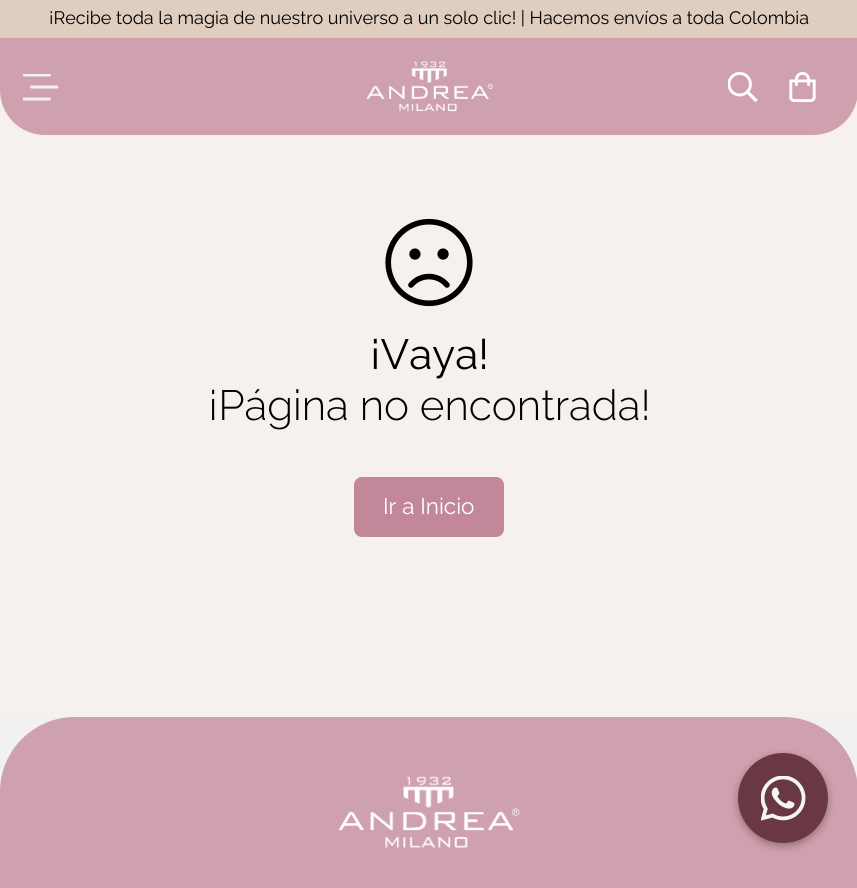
import math
import cairo


def round_path(ctx, x, y, w, h, r):
	ctx.new_sub_path()
	for i, (u, v) in enumerate([(x + w - r, y + h - r), (x + r, y + h - r), (x + r, y + r), (x + w - r, y + r)]):
		ctx.arc(u, v, r, i * math.pi / 2, (i + 1) * math.pi / 2)
	ctx.close_path()

def blur_box(ctx, x, y, w, h, r, blur, alpha):
	ctx.push_group_with_content(cairo.CONTENT_ALPHA)
	ctx.set_operator(cairo.OPERATOR_SOURCE)
	for i in range(15, -16, -2):
		e = blur * i / 6
		if min(w, h) + 2 * e > 0:
			ctx.set_source_rgba(0, 0, 0, alpha * math.erfc((i - 1) / 8.5) / 2)
			round_path(ctx, x - e, y - e, w + 2 * e, h + 2 * e, max(0, min(r + e + blur * .6, min(w, h) / 2 + e)))
			ctx.fill()
	ctx.mask(ctx.pop_group())

def paste(ctx, path, x, y, w, h):
	ctx.save()
	ctx.set_source_surface(cairo.ImageSurface.create_from_png(path), x, y)
	ctx.rectangle(x, y, w, h)
	ctx.fill()
	ctx.restore()

def draw(ctx):
	ctx.set_source_rgb(0.949, 0.945, 0.945)
	ctx.paint()
	ctx.set_source_rgb(0.875, 0.804, 0.753)
	ctx.rectangle(0, 0, 857, 38)
	ctx.fill()
	ctx.select_font_face('Raleway')
	ctx.set_font_size(18)
	ctx.set_source_rgb(0, 0, 0)
	ctx.move_to(49, 24)
	ctx.show_text('¡Recibe toda la magia de nuestro universo a un solo clic! | Hacemos envíos a toda Colombia')
	ctx.set_source_rgb(0.961, 0.945, 0.929)
	ctx.rectangle(0, 90, 857, 627)
	ctx.fill()
	ctx.set_source_rgb(0.812, 0.627, 0.678)
	ctx.new_path()
	ctx.move_to(0, 38)
	ctx.line_to(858, 38)
	ctx.line_to(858, 90)
	ctx.curve_to(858, 115, 838, 135, 813, 135)
	ctx.line_to(45, 135)
	ctx.curve_to(20, 135, 0, 115, 0, 90)
	ctx.close_path()
	ctx.fill()
	paste(ctx, 'media/1.png', 23, 74, 36, 27)
	paste(ctx, 'media/2.png', 366, 61, 128, 51)
	paste(ctx, 'media/3.png', 728, 72, 30, 30)
	paste(ctx, 'media/4.png', 789, 72, 27, 30)
	paste(ctx, 'media/5.png', 385, 218, 88, 89)
	ctx.set_font_size(42.25)
	ctx.set_source_rgb(0, 0, 0)
	ctx.move_to(370, 369)
	ctx.show_text('¡Vaya!')
	ctx.select_font_face('Raleway Light')
	ctx.move_to(208, 420)
	ctx.show_text('¡Página no encontrada!')
	ctx.set_source_rgb(0.761, 0.533, 0.6)
	round_path(ctx, 355, 478, 148, 58, 7)
	ctx.fill_preserve()
	ctx.stroke()
	ctx.select_font_face('Raleway')
	ctx.set_font_size(22.5)
	ctx.set_source_rgb(1, 1, 1)
	ctx.move_to(383, 514)
	ctx.show_text('Ir a Inicio')
	ctx.set_source_rgb(0.812, 0.627, 0.678)
	ctx.new_path()
	ctx.move_to(75, 717)
	ctx.line_to(783, 717)
	ctx.curve_to(824.5, 717, 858, 750.5, 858, 792)
	ctx.line_to(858, 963)
	ctx.line_to(0, 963)
	ctx.line_to(0, 792)
	ctx.curve_to(0, 750.5, 33.5, 717, 75, 717)
	ctx.close_path()
	ctx.fill()
	paste(ctx, 'media/6.png', 338, 776, 182, 72)
	ctx.set_source_rgb(0, 0, 0)
	blur_box(ctx, 738, 756, 90, 90, 45, 4, 0.3)
	ctx.set_source_rgb(0.416, 0.216, 0.267)
	ctx.arc(783, 798, 45, 0, 2 * math.pi)
	ctx.fill()
	paste(ctx, 'media/7.png', 761, 776, 45, 45)


surface = cairo.ImageSurface(cairo.FORMAT_RGB24, 857, 888)
ctx = cairo.Context(surface)
options = cairo.FontOptions()
options.set_hint_metrics(cairo.HINT_METRICS_OFF)
options.set_hint_style(cairo.HINT_STYLE_NONE)
ctx.set_font_options(options)
ctx.set_miter_limit(4)
draw(ctx)
surface.write_to_png('image.png')
